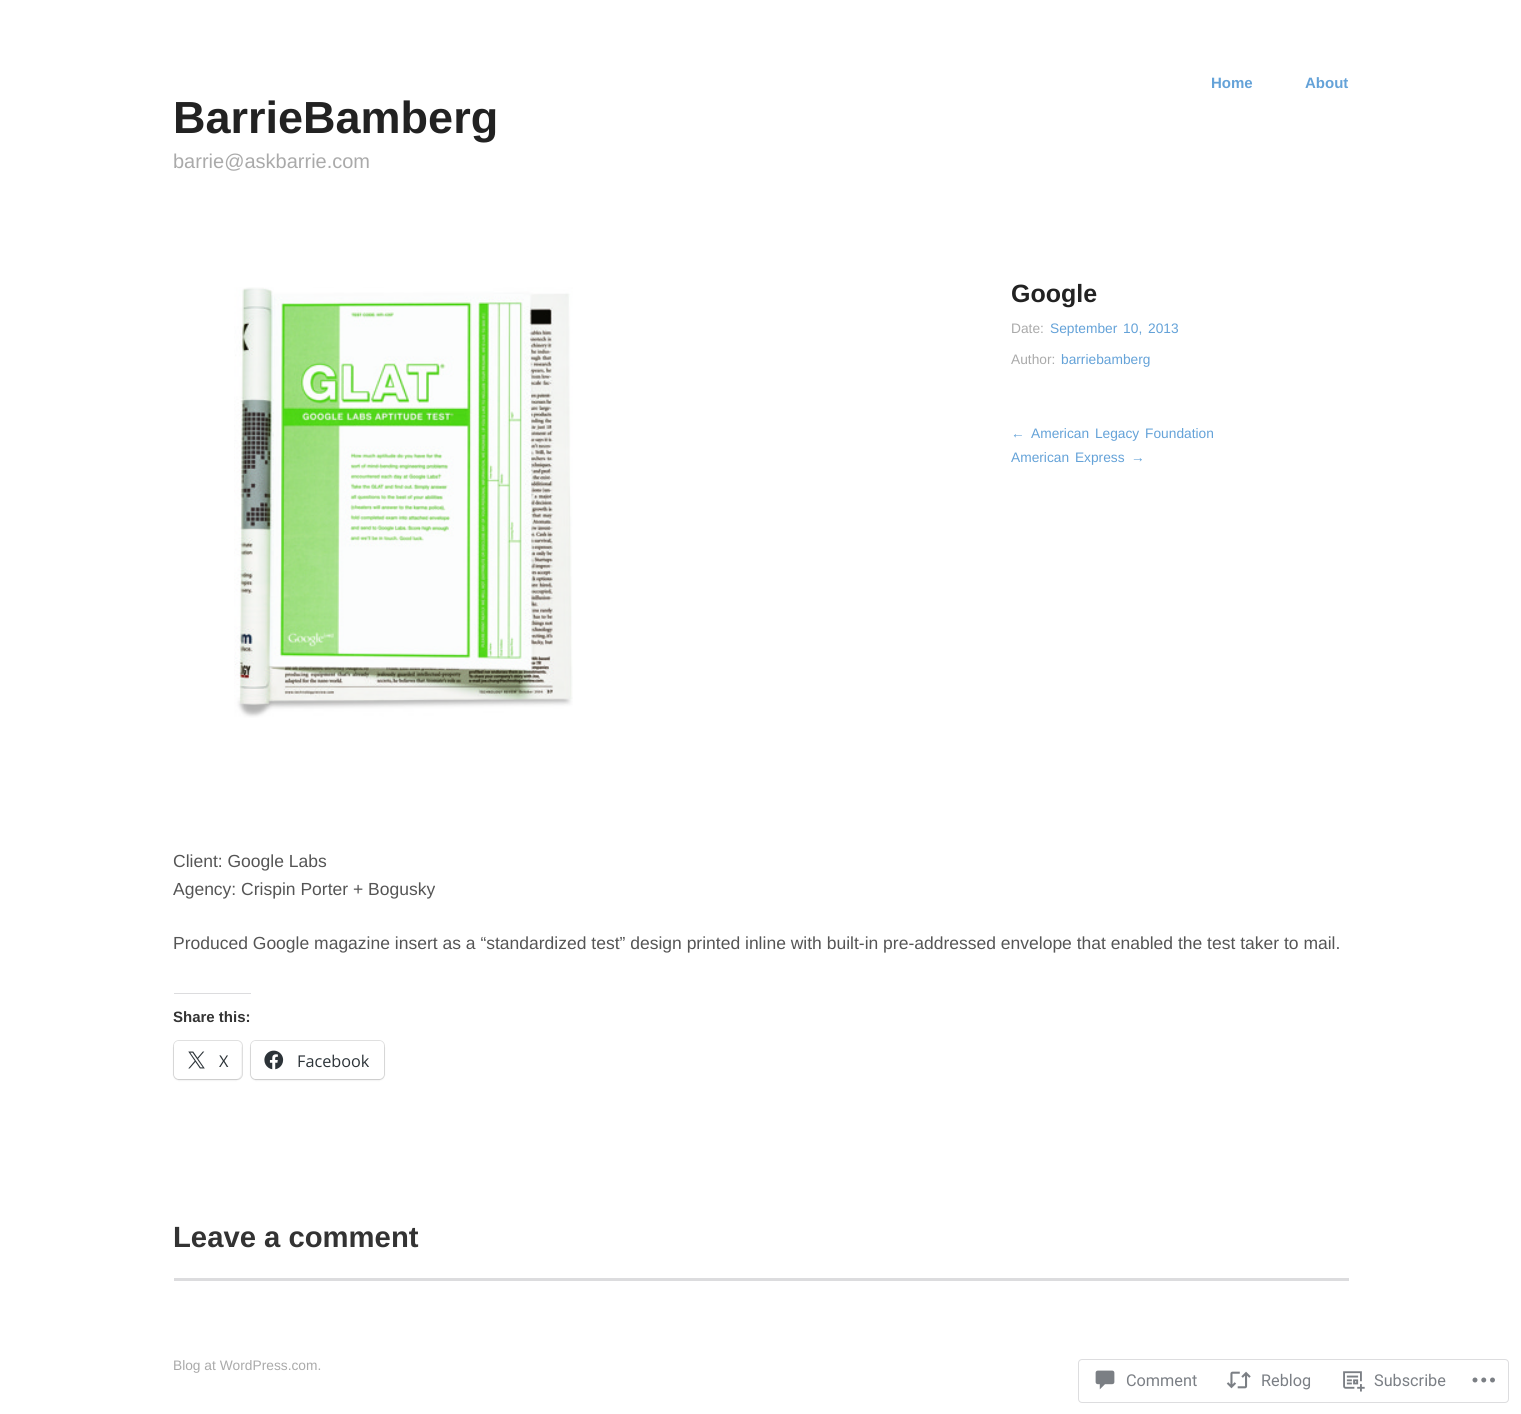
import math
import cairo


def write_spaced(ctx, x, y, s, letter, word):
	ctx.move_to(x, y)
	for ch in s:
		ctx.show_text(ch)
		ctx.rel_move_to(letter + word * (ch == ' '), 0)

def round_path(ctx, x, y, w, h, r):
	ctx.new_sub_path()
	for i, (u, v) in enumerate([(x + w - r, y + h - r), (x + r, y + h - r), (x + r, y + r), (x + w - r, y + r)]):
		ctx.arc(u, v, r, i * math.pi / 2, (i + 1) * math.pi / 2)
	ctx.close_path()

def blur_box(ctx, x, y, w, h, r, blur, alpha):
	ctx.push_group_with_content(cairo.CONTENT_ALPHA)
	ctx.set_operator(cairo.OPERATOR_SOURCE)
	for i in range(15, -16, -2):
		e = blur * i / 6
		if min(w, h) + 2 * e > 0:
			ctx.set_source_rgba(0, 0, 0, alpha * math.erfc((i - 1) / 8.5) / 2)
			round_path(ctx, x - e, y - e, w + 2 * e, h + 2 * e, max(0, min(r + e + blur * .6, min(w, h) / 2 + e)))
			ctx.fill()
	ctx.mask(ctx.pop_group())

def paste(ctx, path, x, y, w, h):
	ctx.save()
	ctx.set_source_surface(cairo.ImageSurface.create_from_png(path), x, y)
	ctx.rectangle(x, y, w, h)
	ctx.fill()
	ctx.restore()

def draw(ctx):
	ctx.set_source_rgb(1, 1, 1)
	ctx.paint()
	ctx.select_font_face('Liberation Sans', cairo.FONT_SLANT_NORMAL, cairo.FONT_WEIGHT_BOLD)
	ctx.set_font_size(15)
	ctx.set_source_rgb(0.392, 0.635, 0.847)
	ctx.move_to(1211, 88)
	ctx.show_text('Home')
	ctx.move_to(1305, 88)
	ctx.show_text('About')
	ctx.set_font_size(45)
	ctx.set_source_rgb(0.133, 0.133, 0.133)
	ctx.move_to(173, 133)
	ctx.show_text('BarrieBamberg')
	ctx.select_font_face('Liberation Sans')
	ctx.set_font_size(20)
	ctx.set_source_rgb(0.667, 0.667, 0.667)
	ctx.move_to(173, 168)
	ctx.show_text('barrie@askbarrie.com')
	paste(ctx, 'media/1.png', 234, 287, 339, 431)
	ctx.select_font_face('Liberation Sans', cairo.FONT_SLANT_NORMAL, cairo.FONT_WEIGHT_BOLD)
	ctx.set_font_size(25)
	ctx.set_source_rgb(0.133, 0.133, 0.133)
	ctx.move_to(1011, 302)
	ctx.show_text('Google')
	ctx.select_font_face('Liberation Sans')
	ctx.set_font_size(13.75)
	ctx.set_source_rgb(0.667, 0.667, 0.667)
	ctx.move_to(1011, 333)
	ctx.show_text('Date:')
	ctx.set_source_rgb(0.392, 0.635, 0.847)
	write_spaced(ctx, 1050, 333, 'September 10, 2013', 0, 2)
	ctx.set_source_rgb(0.667, 0.667, 0.667)
	ctx.move_to(1011, 364)
	ctx.show_text('Author:')
	ctx.set_source_rgb(0.392, 0.635, 0.847)
	ctx.move_to(1061, 364)
	ctx.show_text('barriebamberg')
	ctx.move_to(1011, 438)
	ctx.show_text('←')
	write_spaced(ctx, 1031, 438, 'American Legacy Foundation', 0, 2)
	write_spaced(ctx, 1011, 462, 'American Express', 0, 2)
	ctx.move_to(1131, 462)
	ctx.show_text('→')
	ctx.set_font_size(17.5)
	ctx.set_source_rgb(0.333, 0.333, 0.333)
	for x, y, s in [
		(173, 867, 'Client: Google Labs'),
		(173, 895, 'Agency: Crispin Porter + Bogusky'),
		(173, 949, 'Produced Google magazine insert as a “standardized test” design printed inline with built-in pre-addressed envelope that enabled the test taker to mail.'),
	]:
		ctx.move_to(x, y)
		ctx.show_text(s)
	ctx.set_source_rgb(0.863, 0.863, 0.871)
	ctx.rectangle(174, 993, 77, 1)
	ctx.fill()
	ctx.select_font_face('Liberation Sans', cairo.FONT_SLANT_NORMAL, cairo.FONT_WEIGHT_BOLD)
	ctx.set_font_size(15)
	ctx.set_source_rgb(0.2, 0.2, 0.2)
	ctx.move_to(173, 1022)
	ctx.show_text('Share this:')
	round_path(ctx, 173.5, 1040.5, 69, 39, 5.5)
	ctx.set_source_rgb(0.878, 0.878, 0.878)
	ctx.set_line_width(1)
	ctx.stroke()
	ctx.set_source_rgb(0, 0, 0)
	blur_box(ctx, 174, 1043, 67, 37, 5, 1, 0.12)
	ctx.set_source_rgb(1, 1, 1)
	round_path(ctx, 174, 1041, 67, 38, 5)
	ctx.fill()
	paste(ctx, 'media/2.png', 188, 1051, 17, 18)
	ctx.select_font_face('Open Sans')
	ctx.set_font_size(16.25)
	ctx.set_source_rgb(0.173, 0.2, 0.22)
	ctx.move_to(219, 1067)
	ctx.show_text('X')
	round_path(ctx, 250.5, 1040.5, 134, 39, 5.5)
	ctx.set_source_rgb(0.878, 0.878, 0.878)
	ctx.stroke()
	ctx.set_source_rgb(0, 0, 0)
	blur_box(ctx, 251, 1043, 133, 37, 5, 1, 0.12)
	ctx.set_source_rgb(1, 1, 1)
	round_path(ctx, 251, 1041, 133, 38, 5)
	ctx.fill()
	paste(ctx, 'media/3.png', 264, 1050, 20, 20)
	ctx.set_source_rgb(0.173, 0.2, 0.22)
	ctx.move_to(297, 1067)
	ctx.show_text('Facebook')
	ctx.select_font_face('Liberation Sans', cairo.FONT_SLANT_NORMAL, cairo.FONT_WEIGHT_BOLD)
	ctx.set_font_size(29.25)
	ctx.set_source_rgb(0.2, 0.2, 0.2)
	ctx.move_to(173, 1247)
	ctx.show_text('Leave a comment')
	ctx.set_source_rgb(0.863, 0.863, 0.871)
	ctx.rectangle(174, 1278, 1175, 3)
	ctx.fill()
	ctx.select_font_face('Liberation Sans')
	ctx.set_font_size(13.75)
	ctx.set_source_rgb(0.667, 0.667, 0.667)
	ctx.move_to(173, 1370)
	ctx.show_text('Blog at WordPress.com.')
	round_path(ctx, 1078.5, 1359.5, 430, 43, 3.5)
	ctx.set_source_rgb(0.867, 0.867, 0.875)
	ctx.stroke()
	paste(ctx, 'media/4.png', 1095, 1370, 20, 20)
	ctx.select_font_face('Roboto')
	ctx.set_font_size(16.25)
	ctx.set_source_rgb(0.482, 0.498, 0.522)
	ctx.move_to(1126, 1386)
	ctx.show_text('Comment')
	paste(ctx, 'media/5.png', 1226, 1371, 25, 18)
	ctx.move_to(1261, 1386)
	ctx.show_text('Reblog')
	paste(ctx, 'media/6.png', 1343, 1371, 22, 21)
	ctx.move_to(1374, 1386)
	ctx.show_text('Subscribe')
	paste(ctx, 'media/7.png', 1472, 1377, 23, 6)


surface = cairo.ImageSurface(cairo.FORMAT_RGB24, 1521, 1414)
ctx = cairo.Context(surface)
options = cairo.FontOptions()
options.set_hint_metrics(cairo.HINT_METRICS_OFF)
options.set_hint_style(cairo.HINT_STYLE_NONE)
ctx.set_font_options(options)
ctx.set_miter_limit(4)
draw(ctx)
surface.write_to_png('image.png')
